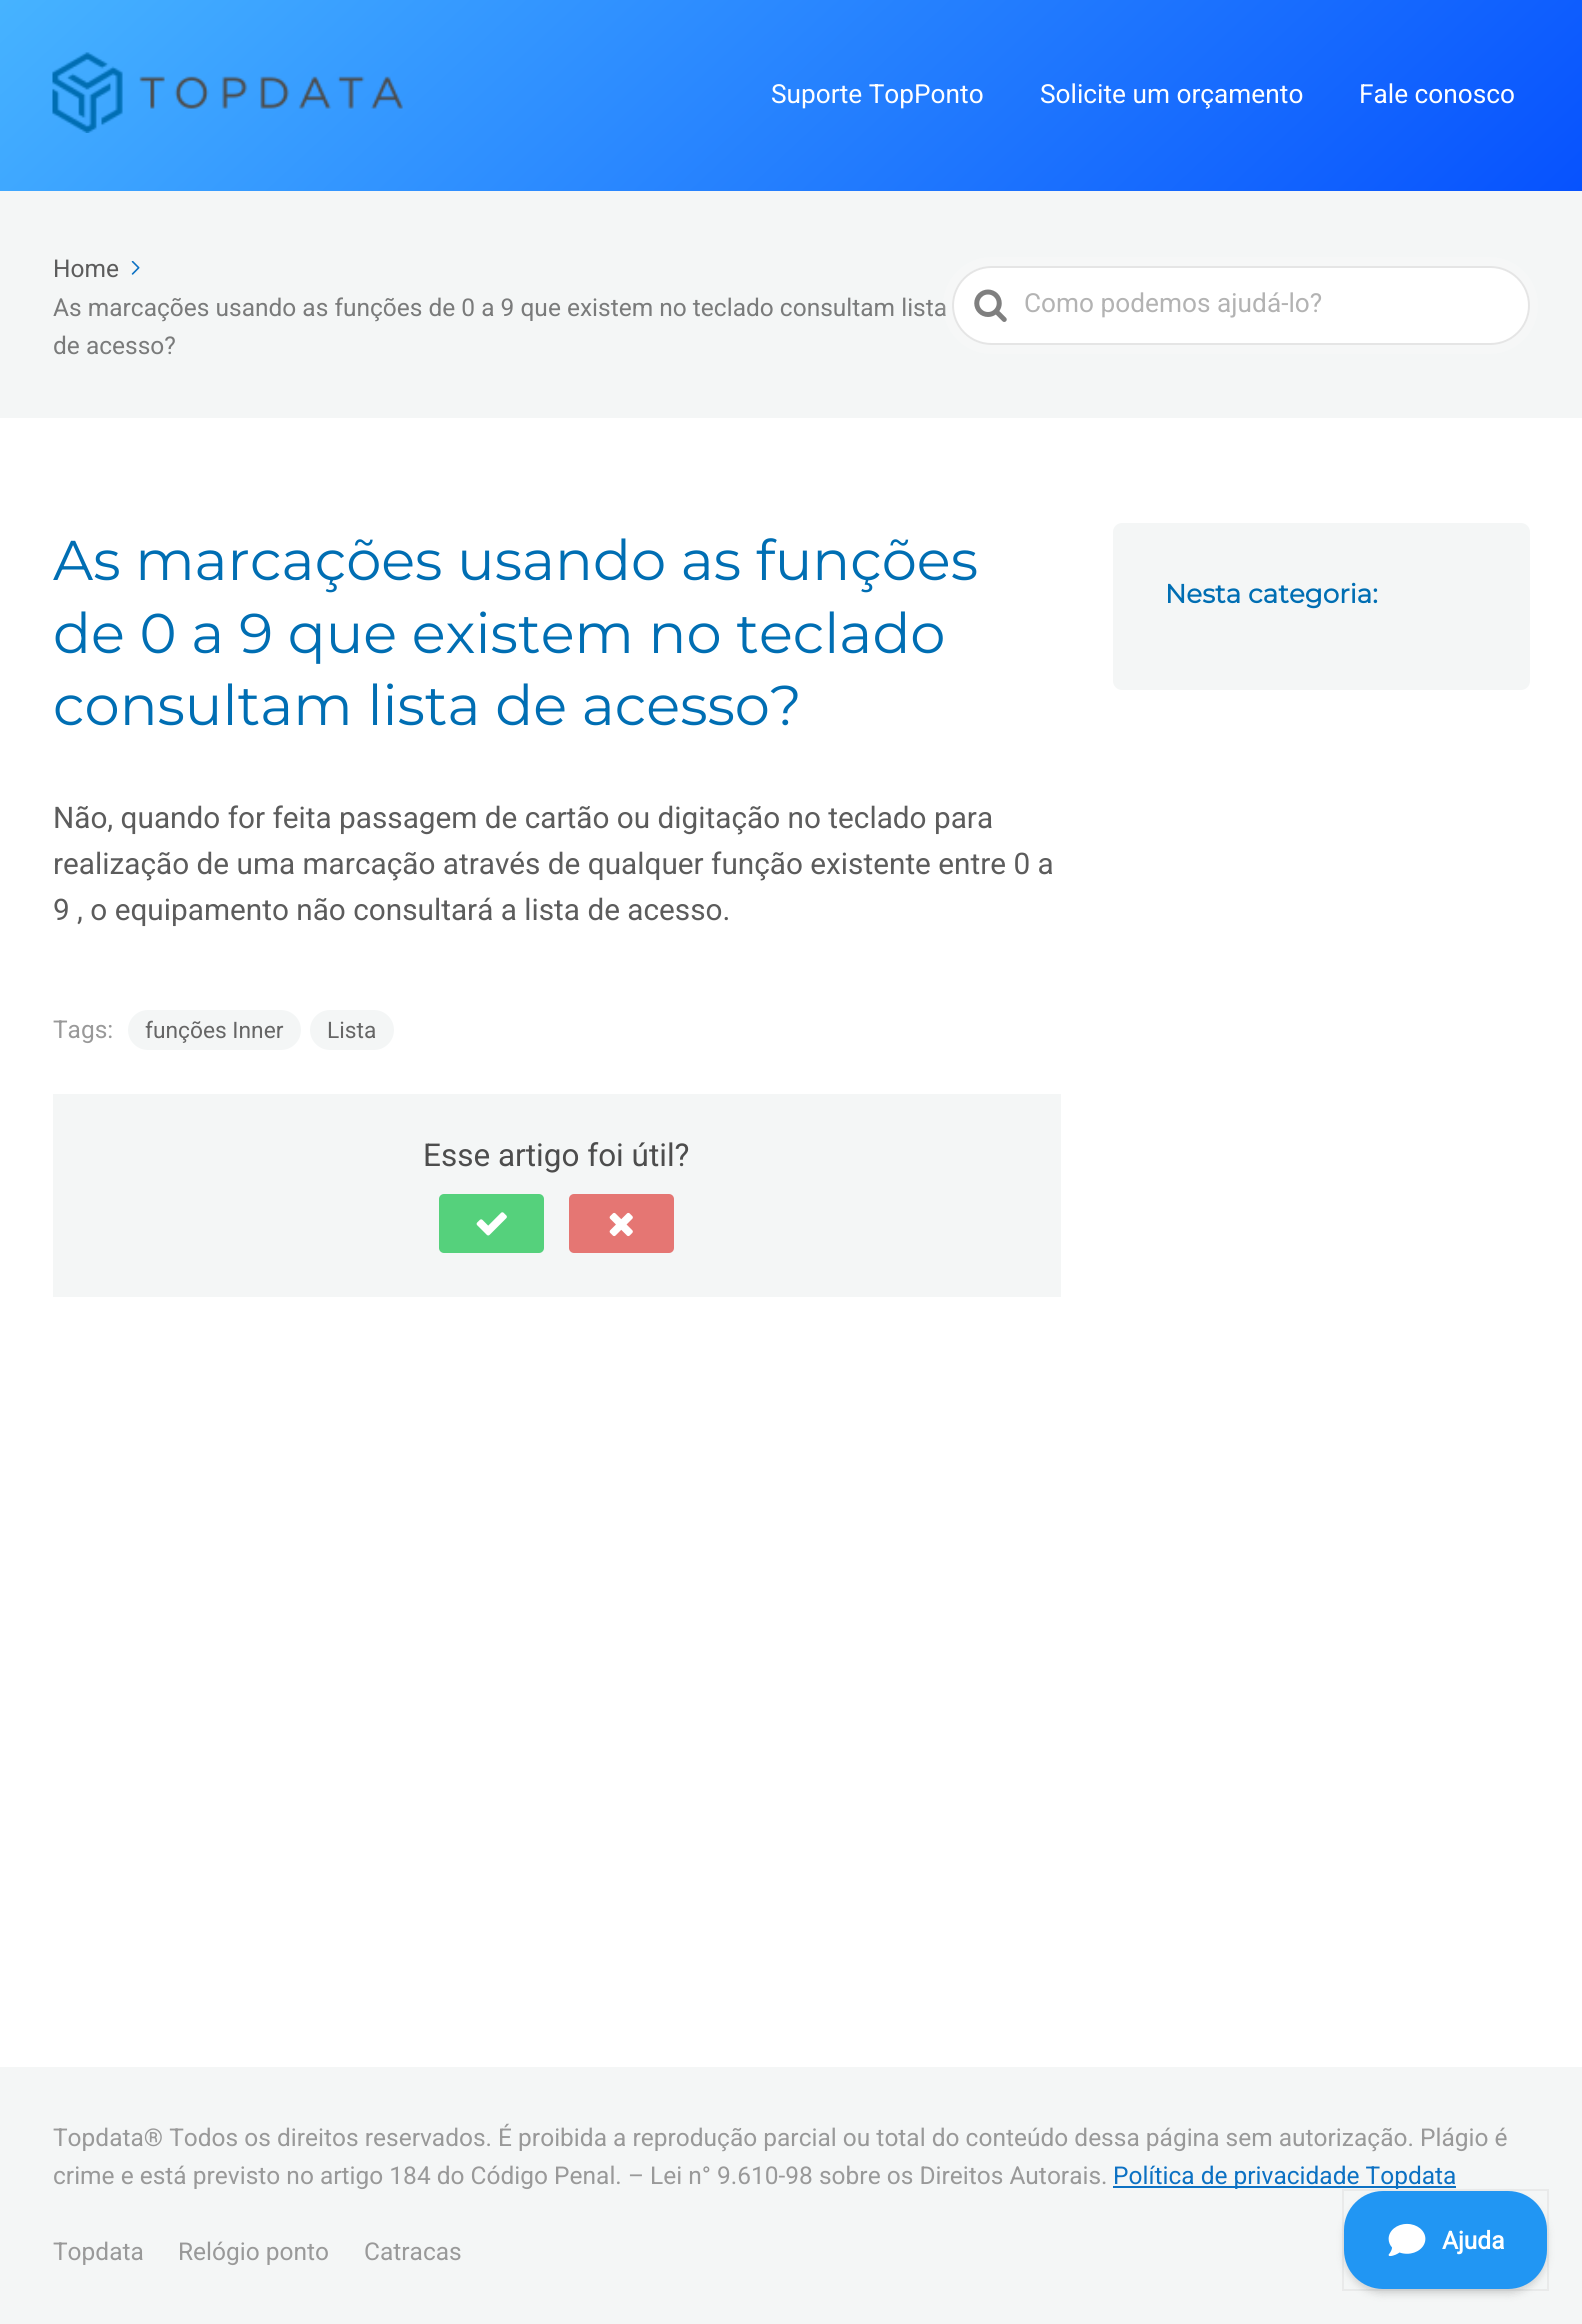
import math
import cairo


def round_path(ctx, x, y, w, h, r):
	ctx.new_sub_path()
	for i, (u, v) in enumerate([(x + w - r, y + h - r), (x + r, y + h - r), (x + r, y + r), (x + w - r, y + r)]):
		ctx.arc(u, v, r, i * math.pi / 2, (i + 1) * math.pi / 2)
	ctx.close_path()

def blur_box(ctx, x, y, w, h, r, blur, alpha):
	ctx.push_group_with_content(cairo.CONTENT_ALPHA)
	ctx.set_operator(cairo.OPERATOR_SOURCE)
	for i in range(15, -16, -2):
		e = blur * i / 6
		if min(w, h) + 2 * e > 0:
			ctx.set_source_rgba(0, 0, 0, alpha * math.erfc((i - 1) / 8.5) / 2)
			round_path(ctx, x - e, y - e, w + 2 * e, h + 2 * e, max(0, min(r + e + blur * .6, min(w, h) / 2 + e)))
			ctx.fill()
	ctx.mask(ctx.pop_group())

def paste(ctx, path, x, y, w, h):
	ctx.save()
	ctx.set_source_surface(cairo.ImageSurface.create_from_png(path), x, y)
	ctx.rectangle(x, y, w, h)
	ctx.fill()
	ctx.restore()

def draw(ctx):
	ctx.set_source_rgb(1, 1, 1)
	ctx.paint()
	gradient = cairo.LinearGradient(376, -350, 1206, 541)
	gradient.add_color_stop_rgba(0, 0.275, 0.702, 1, 1)
	gradient.add_color_stop_rgba(1, 0.027, 0.322, 0.996, 1)
	ctx.set_source(gradient)
	ctx.rectangle(0, 0, 1582, 191)
	ctx.fill()
	paste(ctx, 'media/1.png', 52, 52, 351, 81)
	ctx.select_font_face('Roboto')
	ctx.set_font_size(26.25)
	ctx.set_source_rgb(1, 1, 1)
	for x, y, s in [
		(771, 103, 'Suporte TopPonto'),
		(1040, 103, 'Solicite um orçamento'),
		(1359, 103, 'Fale conosco'),
	]:
		ctx.move_to(x, y)
		ctx.show_text(s)
	ctx.set_source_rgb(0.957, 0.961, 0.961)
	ctx.rectangle(0, 191, 1582, 227)
	ctx.fill()
	ctx.set_font_size(24.5)
	ctx.set_source_rgb(0.361, 0.361, 0.361)
	ctx.move_to(53, 277)
	ctx.show_text('Home')
	paste(ctx, 'media/2.png', 131, 261, 9, 14)
	ctx.set_source_rgb(0.478, 0.482, 0.482)
	ctx.move_to(53, 316)
	ctx.show_text('As marcações usando as funções de 0 a 9 que existem no teclado consultam lista')
	ctx.move_to(53, 354)
	ctx.show_text('de acesso?')
	round_path(ctx, 947.5, 261.5, 586, 88, 44)
	ctx.set_source_rgba(1, 1, 1, 0.15)
	ctx.set_line_width(9)
	ctx.stroke()
	ctx.set_source_rgb(1, 1, 1)
	round_path(ctx, 952, 266, 578, 79, 39.5)
	ctx.fill()
	round_path(ctx, 953, 267, 576, 77, 38.5)
	ctx.set_source_rgba(0.8, 0.8, 0.8, 0.5)
	ctx.set_line_width(2)
	ctx.stroke()
	paste(ctx, 'media/3.png', 974, 289, 33, 33)
	ctx.set_font_size(26.25)
	ctx.set_source_rgb(0.702, 0.702, 0.702)
	ctx.move_to(1024, 312)
	ctx.show_text('Como podemos ajudá-lo?')
	ctx.select_font_face('Montserrat Thin')
	ctx.set_font_size(56)
	ctx.set_source_rgb(0, 0.431, 0.702)
	for x, y, s in [
		(53, 580, 'As marcações usando as funções'),
		(53, 653, 'de 0 a 9 que existem no teclado'),
		(53, 725, 'consultam lista de acesso?'),
	]:
		ctx.move_to(x, y)
		ctx.show_text(s)
	ctx.select_font_face('Roboto')
	ctx.set_font_size(29.75)
	ctx.set_source_rgb(0.361, 0.361, 0.361)
	for x, y, s in [
		(53, 828, 'Não, quando for feita passagem de cartão ou digitação no teclado para'),
		(53, 874, 'realização de uma marcação através de qualquer função existente entre 0 a'),
		(53, 920, '9 , o equipamento não consultará a lista de acesso.'),
	]:
		ctx.move_to(x, y)
		ctx.show_text(s)
	ctx.set_font_size(24.5)
	ctx.set_source_rgb(0.6, 0.6, 0.6)
	ctx.move_to(53, 1038)
	ctx.show_text('Tags:')
	ctx.set_source_rgb(0.957, 0.961, 0.961)
	round_path(ctx, 128, 1010, 173, 40, 20)
	ctx.fill()
	ctx.set_font_size(22.75)
	ctx.set_source_rgb(0.4, 0.4, 0.4)
	ctx.move_to(145, 1038)
	ctx.show_text('funções Inner')
	ctx.set_source_rgb(0.957, 0.961, 0.961)
	round_path(ctx, 310, 1010, 84, 40, 20)
	ctx.fill()
	ctx.set_source_rgb(0.4, 0.4, 0.4)
	ctx.move_to(327, 1038)
	ctx.show_text('Lista')
	ctx.set_source_rgb(0.957, 0.961, 0.961)
	ctx.rectangle(53, 1094, 1008, 203)
	ctx.fill()
	ctx.set_font_size(31.5)
	ctx.set_source_rgb(0.302, 0.302, 0.302)
	ctx.move_to(423, 1166)
	ctx.show_text('Esse artigo foi útil?')
	ctx.set_source_rgb(0.333, 0.82, 0.486)
	round_path(ctx, 439, 1194, 105, 59, 5)
	ctx.fill()
	paste(ctx, 'media/4.png', 476, 1212, 31, 24)
	ctx.set_source_rgb(0.898, 0.463, 0.451)
	round_path(ctx, 569, 1194, 105, 59, 5)
	ctx.fill()
	paste(ctx, 'media/5.png', 609, 1212, 24, 25)
	ctx.set_source_rgb(0.957, 0.961, 0.961)
	round_path(ctx, 1113, 523, 417, 167, 9)
	ctx.fill()
	ctx.select_font_face('Montserrat', cairo.FONT_SLANT_NORMAL, cairo.FONT_WEIGHT_BOLD)
	ctx.set_font_size(26.25)
	ctx.set_source_rgb(0, 0.431, 0.702)
	ctx.move_to(1165, 603)
	ctx.show_text('Nesta categoria:')
	ctx.set_source_rgb(0.957, 0.961, 0.961)
	ctx.rectangle(0, 2067, 1582, 257)
	ctx.fill()
	ctx.select_font_face('Roboto')
	ctx.set_font_size(24.5)
	ctx.set_source_rgb(0.6, 0.6, 0.6)
	ctx.move_to(53, 2146)
	ctx.show_text('Topdata® Todos os direitos reservados. É proibida a reprodução parcial ou total do conteúdo dessa página sem autorização. Plágio é')
	ctx.move_to(53, 2184)
	ctx.show_text('crime e está previsto no artigo 184 do Código Penal. – Lei n° 9.610-98 sobre os Direitos Autorais.')
	ctx.set_source_rgb(0.047, 0.443, 0.765)
	ctx.rectangle(1113, 2186, 343, 2)
	ctx.fill()
	ctx.move_to(1113, 2184)
	ctx.show_text('Política de privacidade Topdata')
	ctx.set_source_rgb(0.6, 0.6, 0.6)
	for x, y, s in [
		(53, 2260, 'Topdata'),
		(178, 2260, 'Relógio ponto'),
		(364, 2260, 'Catracas'),
	]:
		ctx.move_to(x, y)
		ctx.show_text(s)
	ctx.set_source_rgb(0, 0, 0)
	blur_box(ctx, 1344, 2196, 203, 98, 39, 2.5, 0.05)
	blur_box(ctx, 1344, 2196, 203, 98, 39, 4.5, 0.1)
	ctx.rectangle(1343, 2190, 205, 100)
	ctx.set_source_rgba(0, 0, 0, 0.05)
	ctx.stroke()
	ctx.set_source_rgb(0.129, 0.588, 0.953)
	round_path(ctx, 1344, 2191, 203, 98, 39)
	ctx.fill()
	paste(ctx, 'media/6.png', 1388, 2223, 38, 34)
	ctx.select_font_face('Roboto', cairo.FONT_SLANT_NORMAL, cairo.FONT_WEIGHT_BOLD)
	ctx.set_source_rgb(1, 1, 1)
	ctx.move_to(1442, 2249)
	ctx.show_text('Ajuda')


surface = cairo.ImageSurface(cairo.FORMAT_RGB24, 1582, 2324)
ctx = cairo.Context(surface)
options = cairo.FontOptions()
options.set_hint_metrics(cairo.HINT_METRICS_OFF)
options.set_hint_style(cairo.HINT_STYLE_NONE)
ctx.set_font_options(options)
ctx.set_miter_limit(4)
draw(ctx)
surface.write_to_png('image.png')
